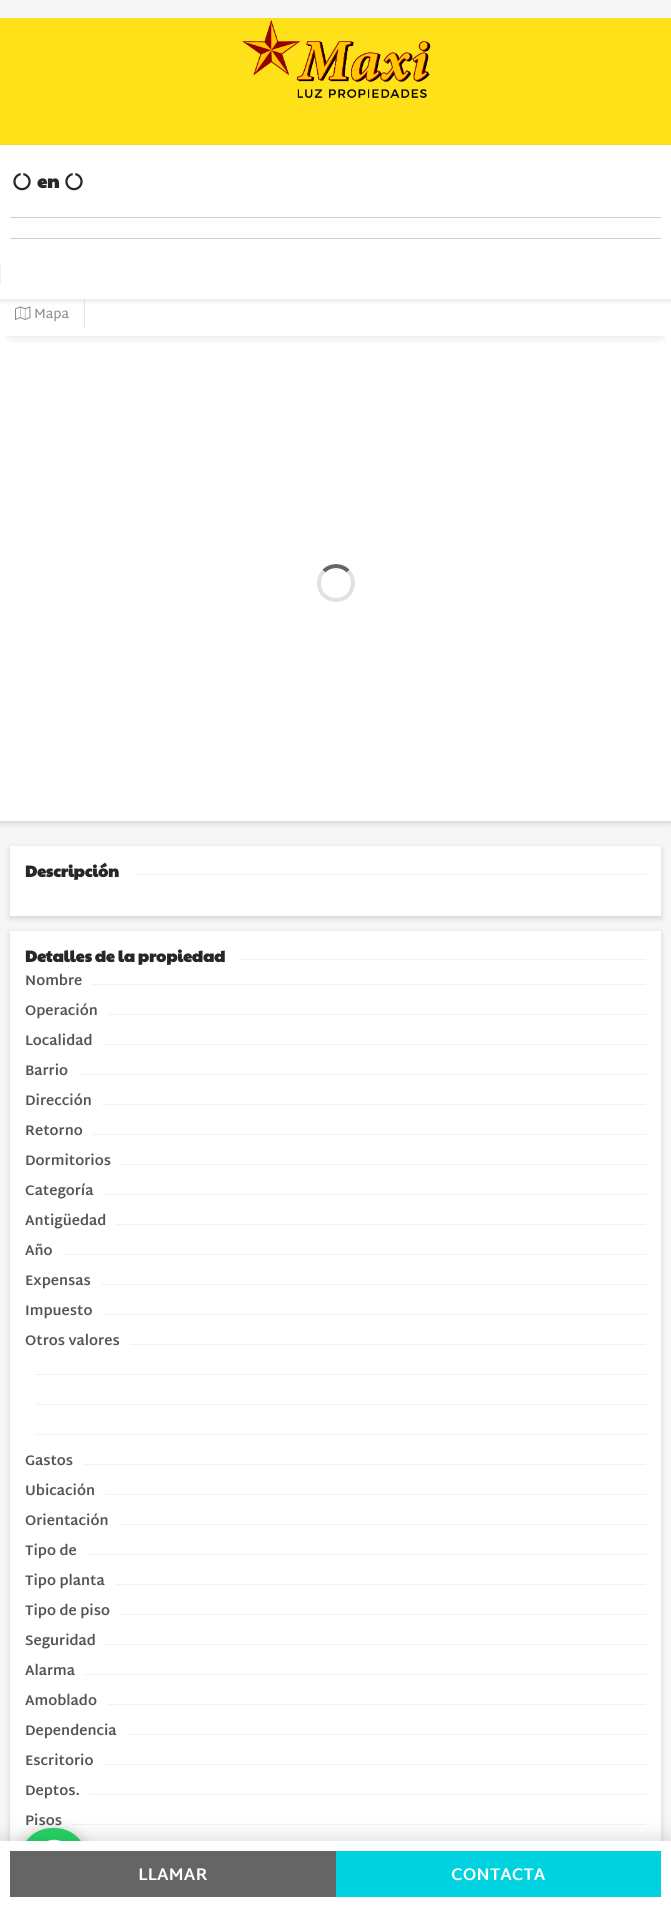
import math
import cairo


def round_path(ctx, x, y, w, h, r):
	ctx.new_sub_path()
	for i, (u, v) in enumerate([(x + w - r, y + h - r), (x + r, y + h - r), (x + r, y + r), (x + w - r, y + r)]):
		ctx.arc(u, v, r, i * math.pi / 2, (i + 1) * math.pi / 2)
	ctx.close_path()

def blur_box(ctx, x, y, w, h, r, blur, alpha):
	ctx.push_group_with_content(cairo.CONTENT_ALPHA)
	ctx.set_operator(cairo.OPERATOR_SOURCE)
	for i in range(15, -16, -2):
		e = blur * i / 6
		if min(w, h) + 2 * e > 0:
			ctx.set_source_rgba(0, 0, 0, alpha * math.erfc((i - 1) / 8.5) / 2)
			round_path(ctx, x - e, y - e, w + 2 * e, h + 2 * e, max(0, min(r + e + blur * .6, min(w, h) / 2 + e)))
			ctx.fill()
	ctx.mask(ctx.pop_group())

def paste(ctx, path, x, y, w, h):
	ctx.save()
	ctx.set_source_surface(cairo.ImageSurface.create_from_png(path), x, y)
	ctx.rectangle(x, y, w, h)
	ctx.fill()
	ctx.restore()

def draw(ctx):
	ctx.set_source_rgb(0.961, 0.961, 0.961)
	ctx.paint()
	ctx.set_source_rgb(1, 0.882, 0.098)
	ctx.rectangle(0, 18, 671, 127)
	ctx.fill()
	paste(ctx, 'media/1.png', 242, 20, 189, 78)
	ctx.set_source_rgb(0, 0, 0)
	blur_box(ctx, 0, 301, 671, 522, 0, 3, 0.15)
	ctx.set_source_rgb(1, 1, 1)
	ctx.rectangle(0, 299, 671, 522)
	ctx.fill()
	ctx.save()
	ctx.rectangle(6, 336, 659, 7)
	ctx.clip()
	ctx.set_source_rgb(0, 0, 0)
	blur_box(ctx, 10, 316, 651, 17, 0, 7.5, 0.2)
	ctx.restore()
	ctx.set_source_rgb(0.902, 0.902, 0.902)
	ctx.rectangle(84, 299, 1, 30)
	ctx.fill()
	paste(ctx, 'media/3.png', 15, 306, 16, 14)
	ctx.set_source_rgb(0, 0, 0)
	blur_box(ctx, 0, 147, 671, 154, 0, 2.5, 0.1)
	ctx.set_source_rgb(1, 1, 1)
	ctx.rectangle(0, 145, 671, 154)
	ctx.fill()
	paste(ctx, 'media/2.png', 13, 173, 18, 18)
	ctx.select_font_face('Paytone One', cairo.FONT_SLANT_NORMAL, cairo.FONT_WEIGHT_BOLD)
	ctx.set_font_size(18)
	ctx.set_source_rgb(0.153, 0.153, 0.153)
	ctx.move_to(37, 188)
	ctx.show_text('en')
	paste(ctx, 'media/2.png', 65, 173, 18, 18)
	ctx.set_source_rgb(0.8, 0.8, 0.8)
	ctx.rectangle(10, 217, 651, 1)
	ctx.rectangle(10, 238, 651, 1)
	ctx.fill()
	ctx.set_source_rgb(0.949, 0.949, 0.949)
	ctx.rectangle(0, 264, 1, 20)
	ctx.fill()
	ctx.select_font_face('Martel Sans')
	ctx.set_font_size(13.5)
	ctx.set_source_rgb(0.525, 0.525, 0.525)
	ctx.move_to(34, 318)
	ctx.show_text('Mapa')
	ctx.new_path()
	ctx.move_to(324, 571)
	ctx.curve_to(330.5, 564.5, 341.5, 564.5, 348, 571)
	ctx.set_source_rgb(0.396, 0.396, 0.396)
	ctx.set_line_width(4)
	ctx.stroke()
	ctx.new_path()
	ctx.move_to(348, 571)
	ctx.curve_to(352, 575, 354, 581, 352.5, 586.5)
	ctx.curve_to(348.5, 606.5, 319, 603.5, 319, 583)
	ctx.curve_to(319, 578.5, 321, 574, 324, 571)
	ctx.set_source_rgba(0, 0, 0, 0.12)
	ctx.stroke()
	ctx.set_source_rgb(0, 0, 0)
	blur_box(ctx, 10, 848, 651, 70, 0, 3, 0.15)
	ctx.set_source_rgb(1, 1, 1)
	ctx.rectangle(10, 846, 651, 70)
	ctx.fill()
	ctx.select_font_face('Paytone One', cairo.FONT_SLANT_NORMAL, cairo.FONT_WEIGHT_BOLD)
	ctx.set_font_size(16)
	ctx.set_source_rgb(0.153, 0.153, 0.153)
	ctx.move_to(25, 877)
	ctx.show_text('Descripción')
	ctx.set_source_rgb(0.949, 0.949, 0.949)
	ctx.rectangle(134, 874, 512, 1)
	ctx.fill()
	ctx.set_source_rgb(0, 0, 0)
	blur_box(ctx, 10, 933, 651, 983, 0, 3, 0.15)
	ctx.set_source_rgb(1, 1, 1)
	ctx.rectangle(10, 931, 651, 910)
	ctx.fill()
	ctx.set_source_rgb(0.153, 0.153, 0.153)
	ctx.move_to(25, 962)
	ctx.show_text('Detalles de la propiedad')
	ctx.set_source_rgb(0.949, 0.949, 0.949)
	ctx.rectangle(240, 959, 406, 1)
	ctx.fill()
	ctx.select_font_face('Martel Sans', cairo.FONT_SLANT_NORMAL, cairo.FONT_WEIGHT_BOLD)
	ctx.set_font_size(14)
	ctx.set_source_rgb(0.329, 0.329, 0.329)
	ctx.move_to(25, 985)
	ctx.show_text('Nombre')
	ctx.set_source_rgb(0.949, 0.949, 0.949)
	ctx.rectangle(92, 984, 554, 1)
	ctx.fill()
	ctx.set_source_rgb(0.329, 0.329, 0.329)
	ctx.move_to(25, 1015)
	ctx.show_text('Operación')
	ctx.set_source_rgb(0.949, 0.949, 0.949)
	ctx.rectangle(108, 1014, 538, 1)
	ctx.fill()
	ctx.set_source_rgb(0.329, 0.329, 0.329)
	ctx.move_to(25, 1045)
	ctx.show_text('Localidad')
	ctx.set_source_rgb(0.949, 0.949, 0.949)
	ctx.rectangle(103, 1044, 543, 1)
	ctx.fill()
	ctx.set_source_rgb(0.329, 0.329, 0.329)
	ctx.move_to(25, 1075)
	ctx.show_text('Barrio')
	ctx.set_source_rgb(0.949, 0.949, 0.949)
	ctx.rectangle(78, 1074, 568, 1)
	ctx.fill()
	ctx.set_source_rgb(0.329, 0.329, 0.329)
	ctx.move_to(25, 1105)
	ctx.show_text('Dirección')
	ctx.set_source_rgb(0.949, 0.949, 0.949)
	ctx.rectangle(102, 1104, 544, 1)
	ctx.fill()
	ctx.set_source_rgb(0.329, 0.329, 0.329)
	ctx.move_to(25, 1135)
	ctx.show_text('Retorno')
	ctx.set_source_rgb(0.949, 0.949, 0.949)
	ctx.rectangle(93, 1134, 553, 1)
	ctx.fill()
	ctx.set_source_rgb(0.329, 0.329, 0.329)
	ctx.move_to(25, 1165)
	ctx.show_text('Dormitorios')
	ctx.set_source_rgb(0.949, 0.949, 0.949)
	ctx.rectangle(121, 1164, 525, 1)
	ctx.fill()
	ctx.set_source_rgb(0.329, 0.329, 0.329)
	ctx.move_to(25, 1195)
	ctx.show_text('Categoría')
	ctx.set_source_rgb(0.949, 0.949, 0.949)
	ctx.rectangle(103, 1194, 543, 1)
	ctx.fill()
	ctx.set_source_rgb(0.329, 0.329, 0.329)
	ctx.move_to(25, 1225)
	ctx.show_text('Antigüedad')
	ctx.set_source_rgb(0.949, 0.949, 0.949)
	ctx.rectangle(116, 1224, 530, 1)
	ctx.fill()
	ctx.set_source_rgb(0.329, 0.329, 0.329)
	ctx.move_to(25, 1255)
	ctx.show_text('Año')
	ctx.set_source_rgb(0.949, 0.949, 0.949)
	ctx.rectangle(63, 1254, 583, 1)
	ctx.fill()
	ctx.set_source_rgb(0.329, 0.329, 0.329)
	ctx.move_to(25, 1285)
	ctx.show_text('Expensas')
	ctx.set_source_rgb(0.949, 0.949, 0.949)
	ctx.rectangle(101, 1284, 545, 1)
	ctx.fill()
	ctx.set_source_rgb(0.329, 0.329, 0.329)
	ctx.move_to(25, 1315)
	ctx.show_text('Impuesto')
	ctx.set_source_rgb(0.949, 0.949, 0.949)
	ctx.rectangle(102, 1314, 544, 1)
	ctx.fill()
	ctx.set_source_rgb(0.329, 0.329, 0.329)
	ctx.move_to(25, 1345)
	ctx.show_text('Otros valores')
	ctx.set_source_rgb(0.949, 0.949, 0.949)
	ctx.rectangle(130, 1344, 516, 1)
	ctx.rectangle(35, 1374, 611, 1)
	ctx.rectangle(35, 1404, 611, 1)
	ctx.rectangle(35, 1434, 611, 1)
	ctx.fill()
	ctx.set_source_rgb(0.329, 0.329, 0.329)
	ctx.move_to(25, 1465)
	ctx.show_text('Gastos')
	ctx.set_source_rgb(0.949, 0.949, 0.949)
	ctx.rectangle(83, 1464, 563, 1)
	ctx.fill()
	ctx.set_source_rgb(0.329, 0.329, 0.329)
	ctx.move_to(25, 1495)
	ctx.show_text('Ubicación')
	ctx.set_source_rgb(0.949, 0.949, 0.949)
	ctx.rectangle(105, 1494, 541, 1)
	ctx.fill()
	ctx.set_source_rgb(0.329, 0.329, 0.329)
	ctx.move_to(25, 1525)
	ctx.show_text('Orientación')
	ctx.set_source_rgb(0.949, 0.949, 0.949)
	ctx.rectangle(119, 1524, 527, 1)
	ctx.fill()
	ctx.set_source_rgb(0.329, 0.329, 0.329)
	ctx.move_to(25, 1555)
	ctx.show_text('Tipo de')
	ctx.set_source_rgb(0.949, 0.949, 0.949)
	ctx.rectangle(87, 1554, 559, 1)
	ctx.fill()
	ctx.set_source_rgb(0.329, 0.329, 0.329)
	ctx.move_to(25, 1585)
	ctx.show_text('Tipo planta')
	ctx.set_source_rgb(0.949, 0.949, 0.949)
	ctx.rectangle(115, 1584, 531, 1)
	ctx.fill()
	ctx.set_source_rgb(0.329, 0.329, 0.329)
	ctx.move_to(25, 1615)
	ctx.show_text('Tipo de piso')
	ctx.set_source_rgb(0.949, 0.949, 0.949)
	ctx.rectangle(120, 1614, 526, 1)
	ctx.fill()
	ctx.set_source_rgb(0.329, 0.329, 0.329)
	ctx.move_to(25, 1645)
	ctx.show_text('Seguridad')
	ctx.set_source_rgb(0.949, 0.949, 0.949)
	ctx.rectangle(106, 1644, 540, 1)
	ctx.fill()
	ctx.set_source_rgb(0.329, 0.329, 0.329)
	ctx.move_to(25, 1675)
	ctx.show_text('Alarma')
	ctx.set_source_rgb(0.949, 0.949, 0.949)
	ctx.rectangle(85, 1674, 561, 1)
	ctx.fill()
	ctx.set_source_rgb(0.329, 0.329, 0.329)
	ctx.move_to(25, 1705)
	ctx.show_text('Amoblado')
	ctx.set_source_rgb(0.949, 0.949, 0.949)
	ctx.rectangle(107, 1704, 539, 1)
	ctx.fill()
	ctx.set_source_rgb(0.329, 0.329, 0.329)
	ctx.move_to(25, 1735)
	ctx.show_text('Dependencia')
	ctx.set_source_rgb(0.949, 0.949, 0.949)
	ctx.rectangle(127, 1734, 519, 1)
	ctx.fill()
	ctx.set_source_rgb(0.329, 0.329, 0.329)
	ctx.move_to(25, 1765)
	ctx.show_text('Escritorio')
	ctx.set_source_rgb(0.949, 0.949, 0.949)
	ctx.rectangle(103, 1764, 543, 1)
	ctx.fill()
	ctx.set_source_rgb(0.329, 0.329, 0.329)
	ctx.move_to(25, 1795)
	ctx.show_text('Deptos.')
	ctx.set_source_rgb(0.949, 0.949, 0.949)
	ctx.rectangle(90, 1794, 556, 1)
	ctx.fill()
	ctx.set_source_rgb(0.329, 0.329, 0.329)
	ctx.move_to(25, 1825)
	ctx.show_text('Pisos')
	ctx.set_source_rgb(0.949, 0.949, 0.949)
	ctx.rectangle(72, 1824, 574, 1)
	ctx.fill()
	ctx.set_source_rgb(0, 0, 0)
	blur_box(ctx, 20, 1833, 67, 64, 32, 8, 0.32)
	ctx.set_source_rgb(0.145, 0.827, 0.4)
	round_path(ctx, 20, 1828, 67, 64, 32)
	ctx.fill()
	paste(ctx, 'media/4.png', 47, 1839, 14, 2)
	ctx.set_source_rgb(0, 0, 0)
	blur_box(ctx, 0, 1835, 671, 66, 0, 7.5, 0.1)
	ctx.set_source_rgb(1, 1, 1)
	ctx.rectangle(0, 1841, 671, 66)
	ctx.fill()
	ctx.set_source_rgb(0.396, 0.396, 0.396)
	ctx.rectangle(10, 1851, 326, 46)
	ctx.fill()
	ctx.set_font_size(17)
	ctx.set_source_rgb(1, 1, 1)
	ctx.move_to(138, 1880)
	ctx.show_text('LLAMAR')
	ctx.set_source_rgb(0, 0.824, 0.878)
	ctx.rectangle(336, 1851, 325, 46)
	ctx.fill()
	ctx.set_source_rgb(1, 1, 1)
	ctx.move_to(451, 1880)
	ctx.show_text('CONTACTA')


surface = cairo.ImageSurface(cairo.FORMAT_RGB24, 671, 1907)
ctx = cairo.Context(surface)
options = cairo.FontOptions()
options.set_hint_metrics(cairo.HINT_METRICS_OFF)
options.set_hint_style(cairo.HINT_STYLE_NONE)
ctx.set_font_options(options)
ctx.set_miter_limit(4)
draw(ctx)
surface.write_to_png('image.png')
